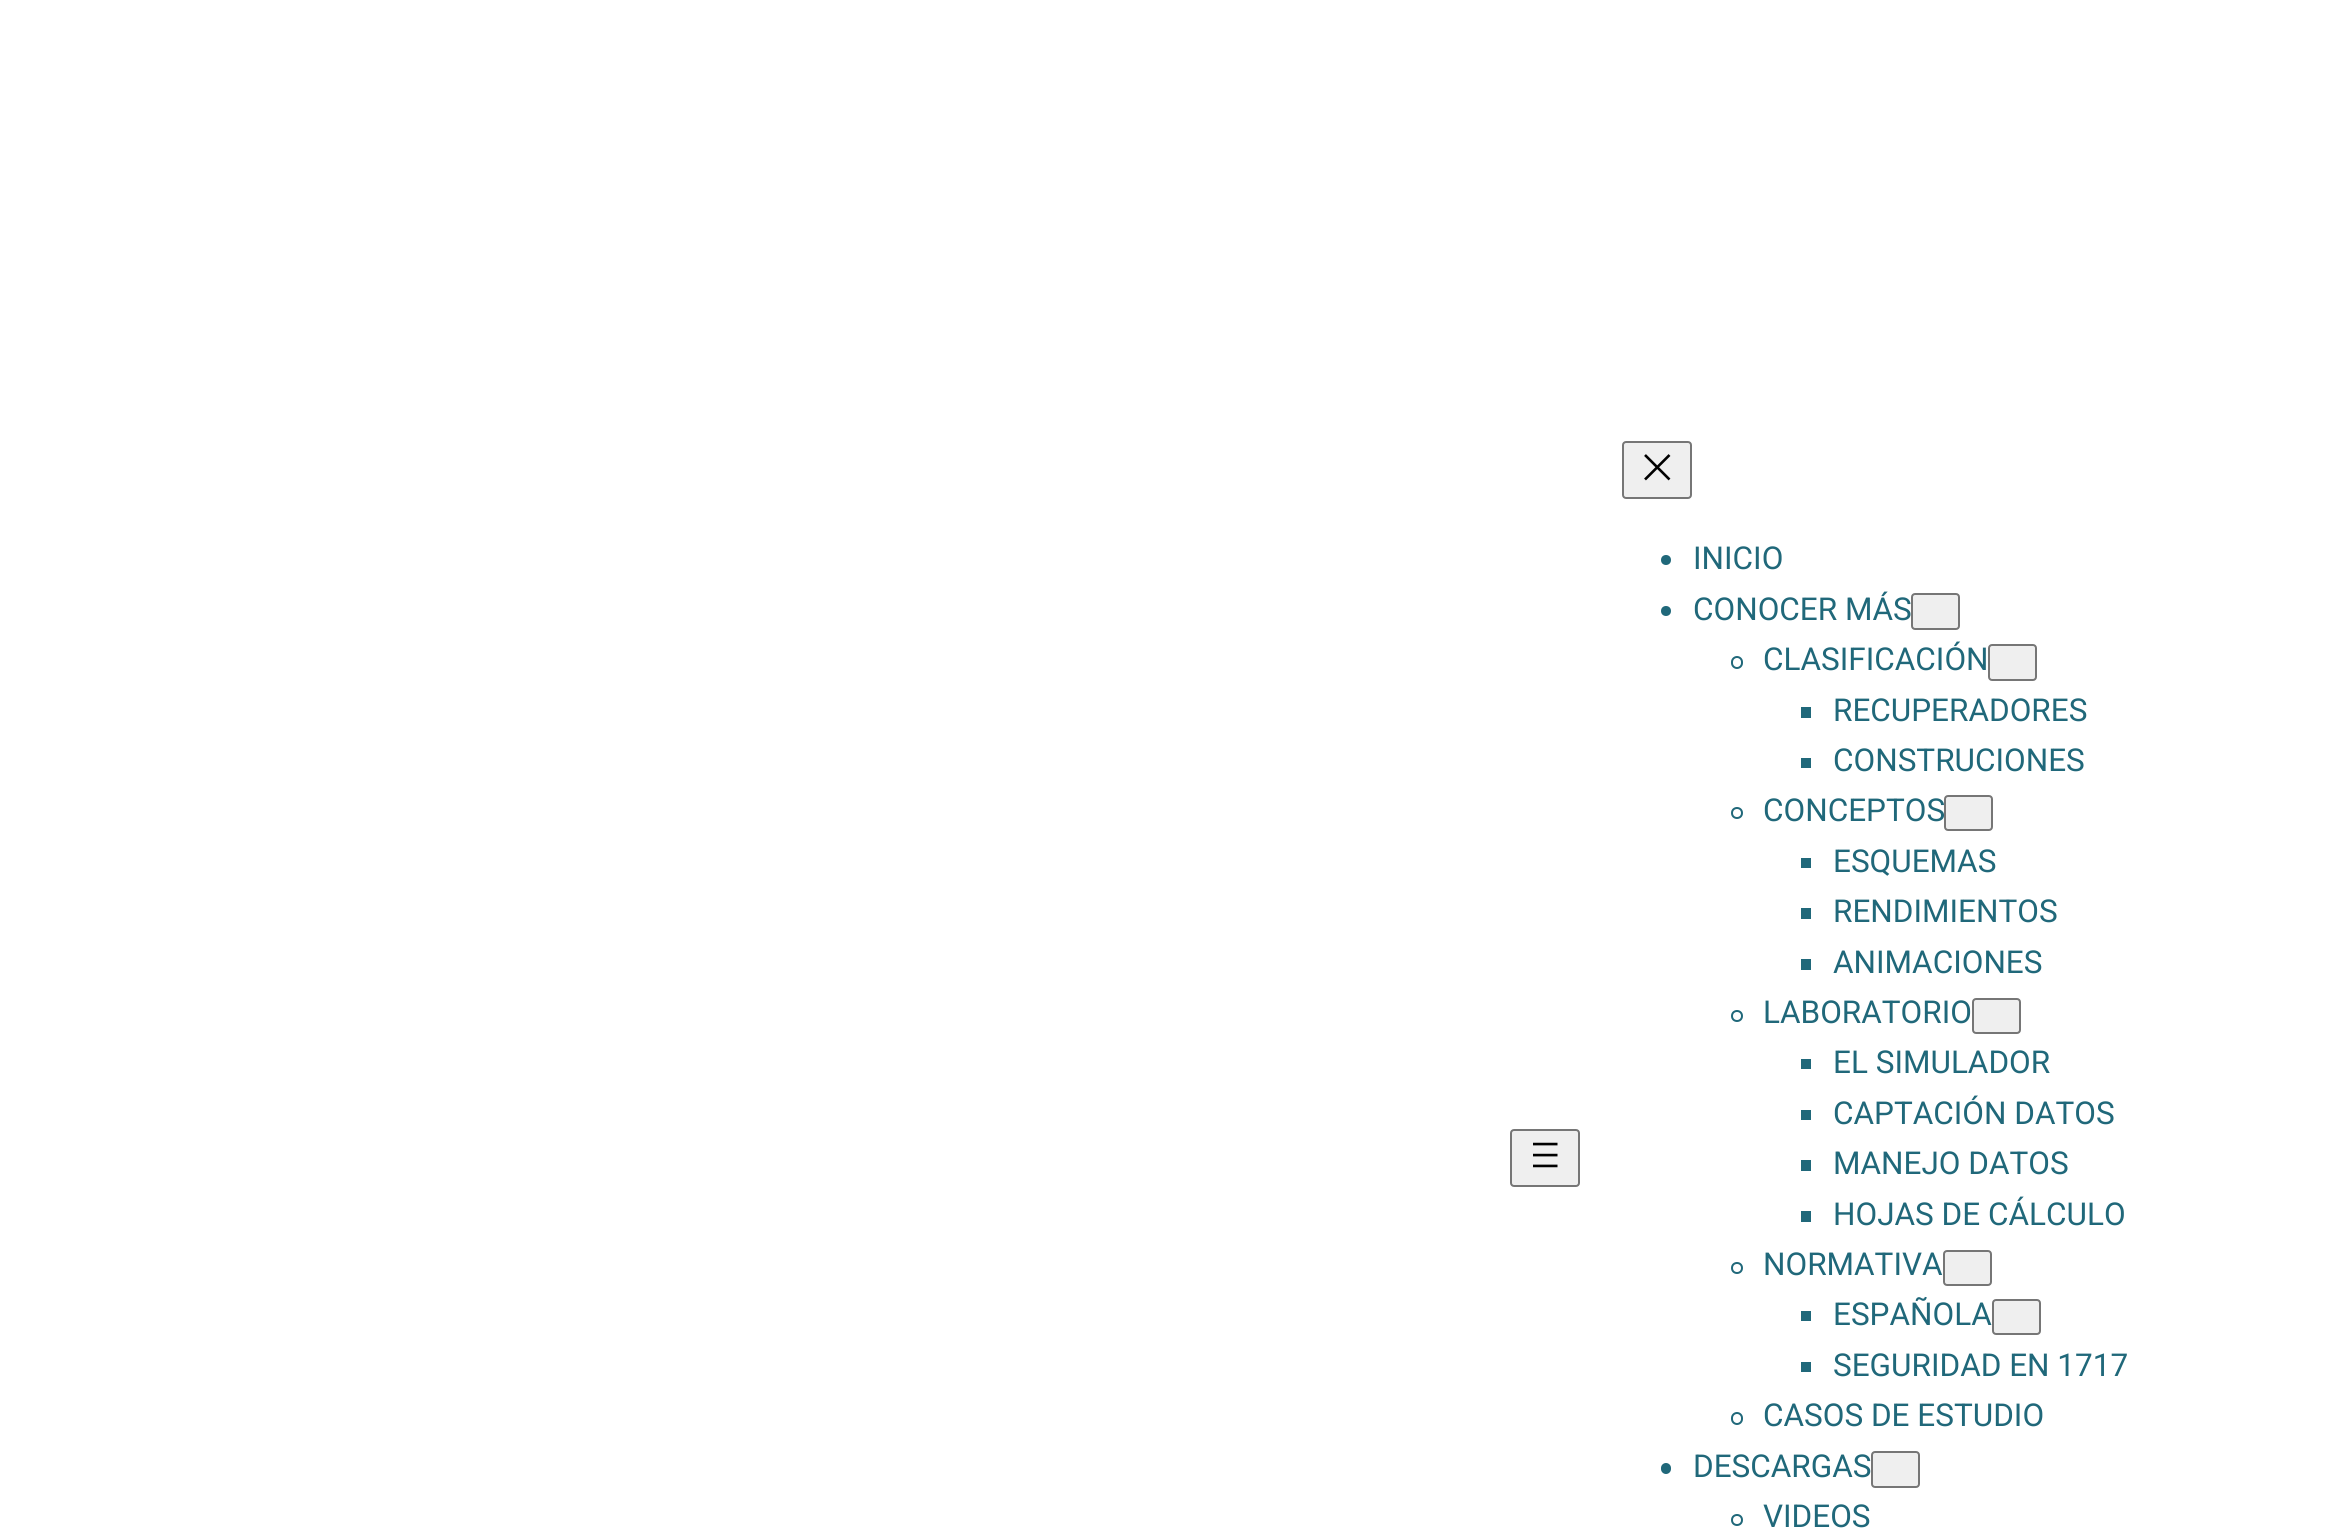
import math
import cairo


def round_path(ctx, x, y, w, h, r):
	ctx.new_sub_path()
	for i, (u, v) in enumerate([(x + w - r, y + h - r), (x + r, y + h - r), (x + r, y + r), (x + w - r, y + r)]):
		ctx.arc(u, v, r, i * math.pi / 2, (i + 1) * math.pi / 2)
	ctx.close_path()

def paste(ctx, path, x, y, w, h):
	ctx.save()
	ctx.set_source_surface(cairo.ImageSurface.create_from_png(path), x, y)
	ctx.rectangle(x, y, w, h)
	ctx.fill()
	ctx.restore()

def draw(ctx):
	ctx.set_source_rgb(1, 1, 1)
	ctx.paint()
	ctx.set_source_rgb(0.937, 0.937, 0.937)
	round_path(ctx, 1511, 1130, 68, 56, 3)
	ctx.fill_preserve()
	ctx.set_source_rgb(0.463, 0.463, 0.463)
	ctx.stroke()
	paste(ctx, 'media/1.png', 1533, 1142, 25, 26)
	ctx.set_source_rgb(0.937, 0.937, 0.937)
	round_path(ctx, 1623, 442, 68, 56, 3)
	ctx.fill_preserve()
	ctx.set_source_rgb(0.463, 0.463, 0.463)
	ctx.stroke()
	paste(ctx, 'media/2.png', 1644, 454, 27, 27)
	ctx.set_source_rgb(0.125, 0.408, 0.478)
	ctx.arc(1666, 560, 5, 0, 2 * math.pi)
	ctx.fill()
	ctx.select_font_face('Roboto')
	ctx.set_font_size(31.5)
	ctx.move_to(1693, 569)
	ctx.show_text('INICIO')
	ctx.new_path()
	ctx.arc(1666, 611, 5, 0, 2 * math.pi)
	ctx.fill()
	ctx.move_to(1693, 620)
	ctx.show_text('CONOCER MÁS')
	ctx.set_source_rgb(0.937, 0.937, 0.937)
	round_path(ctx, 1912, 594, 47, 35, 3)
	ctx.fill_preserve()
	ctx.set_source_rgb(0.463, 0.463, 0.463)
	ctx.stroke()
	round_path(ctx, 1732, 657, 10, 11, 5)
	ctx.set_source_rgb(0.125, 0.408, 0.478)
	ctx.stroke()
	ctx.move_to(1763, 670)
	ctx.show_text('CLASIFICACIÓN')
	ctx.set_source_rgb(0.937, 0.937, 0.937)
	round_path(ctx, 1989, 645, 47, 35, 3)
	ctx.fill_preserve()
	ctx.set_source_rgb(0.463, 0.463, 0.463)
	ctx.stroke()
	ctx.set_source_rgb(0.125, 0.408, 0.478)
	ctx.rectangle(1801, 707, 10, 11)
	ctx.fill()
	ctx.move_to(1833, 721)
	ctx.show_text('RECUPERADORES')
	ctx.rectangle(1801, 758, 10, 10)
	ctx.fill()
	ctx.move_to(1833, 771)
	ctx.show_text('CONSTRUCIONES')
	ctx.new_path()
	ctx.arc(1737, 813, 5, 0, 2 * math.pi)
	ctx.stroke()
	ctx.move_to(1763, 821)
	ctx.show_text('CONCEPTOS')
	ctx.set_source_rgb(0.937, 0.937, 0.937)
	round_path(ctx, 1945, 796, 47, 34, 3)
	ctx.fill_preserve()
	ctx.set_source_rgb(0.463, 0.463, 0.463)
	ctx.stroke()
	ctx.set_source_rgb(0.125, 0.408, 0.478)
	ctx.rectangle(1801, 858, 10, 10)
	ctx.fill()
	ctx.move_to(1833, 872)
	ctx.show_text('ESQUEMAS')
	ctx.rectangle(1801, 908, 10, 11)
	ctx.fill()
	ctx.move_to(1833, 922)
	ctx.show_text('RENDIMIENTOS')
	ctx.rectangle(1801, 959, 10, 11)
	ctx.fill()
	ctx.move_to(1833, 973)
	ctx.show_text('ANIMACIONES')
	ctx.new_path()
	ctx.arc(1737, 1016, 5, 0, 2 * math.pi)
	ctx.stroke()
	ctx.move_to(1763, 1023)
	ctx.show_text('LABORATORIO')
	ctx.set_source_rgb(0.937, 0.937, 0.937)
	round_path(ctx, 1973, 999, 47, 34, 3)
	ctx.fill_preserve()
	ctx.set_source_rgb(0.463, 0.463, 0.463)
	ctx.stroke()
	ctx.set_source_rgb(0.125, 0.408, 0.478)
	ctx.rectangle(1801, 1059, 10, 10)
	ctx.fill()
	ctx.move_to(1833, 1073)
	ctx.show_text('EL SIMULADOR')
	ctx.rectangle(1801, 1110, 10, 10)
	ctx.fill()
	ctx.move_to(1833, 1124)
	ctx.show_text('CAPTACIÓN DATOS')
	ctx.rectangle(1801, 1160, 10, 11)
	ctx.fill()
	ctx.move_to(1833, 1174)
	ctx.show_text('MANEJO DATOS')
	ctx.rectangle(1801, 1211, 10, 11)
	ctx.fill()
	ctx.move_to(1833, 1225)
	ctx.show_text('HOJAS DE CÁLCULO')
	ctx.new_path()
	ctx.arc(1737, 1268, 5, 0, 2 * math.pi)
	ctx.stroke()
	ctx.move_to(1763, 1275)
	ctx.show_text('NORMATIVA')
	ctx.set_source_rgb(0.937, 0.937, 0.937)
	round_path(ctx, 1944, 1251, 47, 34, 3)
	ctx.fill_preserve()
	ctx.set_source_rgb(0.463, 0.463, 0.463)
	ctx.stroke()
	ctx.set_source_rgb(0.125, 0.408, 0.478)
	ctx.rectangle(1801, 1311, 10, 10)
	ctx.fill()
	ctx.move_to(1833, 1325)
	ctx.show_text('ESPAÑOLA')
	ctx.set_source_rgb(0.937, 0.937, 0.937)
	round_path(ctx, 1993, 1300, 47, 34, 3)
	ctx.fill_preserve()
	ctx.set_source_rgb(0.463, 0.463, 0.463)
	ctx.stroke()
	ctx.set_source_rgb(0.125, 0.408, 0.478)
	ctx.rectangle(1801, 1362, 10, 10)
	ctx.fill()
	ctx.move_to(1833, 1376)
	ctx.show_text('SEGURIDAD EN 1717')
	round_path(ctx, 1732, 1413, 10, 11, 5)
	ctx.stroke()
	ctx.move_to(1763, 1426)
	ctx.show_text('CASOS DE ESTUDIO')
	round_path(ctx, 1661, 1463, 10, 11, 5)
	ctx.fill()
	ctx.move_to(1693, 1477)
	ctx.show_text('DESCARGAS')
	ctx.set_source_rgb(0.937, 0.937, 0.937)
	round_path(ctx, 1872, 1452, 47, 35, 3)
	ctx.fill_preserve()
	ctx.set_source_rgb(0.463, 0.463, 0.463)
	ctx.stroke()
	ctx.arc(1737, 1520, 5, 0, 2 * math.pi)
	ctx.set_source_rgb(0.125, 0.408, 0.478)
	ctx.stroke()
	ctx.move_to(1763, 1527)
	ctx.show_text('VIDEOS')


surface = cairo.ImageSurface(cairo.FORMAT_RGB24, 2330, 1535)
ctx = cairo.Context(surface)
options = cairo.FontOptions()
options.set_hint_metrics(cairo.HINT_METRICS_OFF)
options.set_hint_style(cairo.HINT_STYLE_NONE)
ctx.set_font_options(options)
ctx.set_miter_limit(4)
draw(ctx)
surface.write_to_png('image.png')
